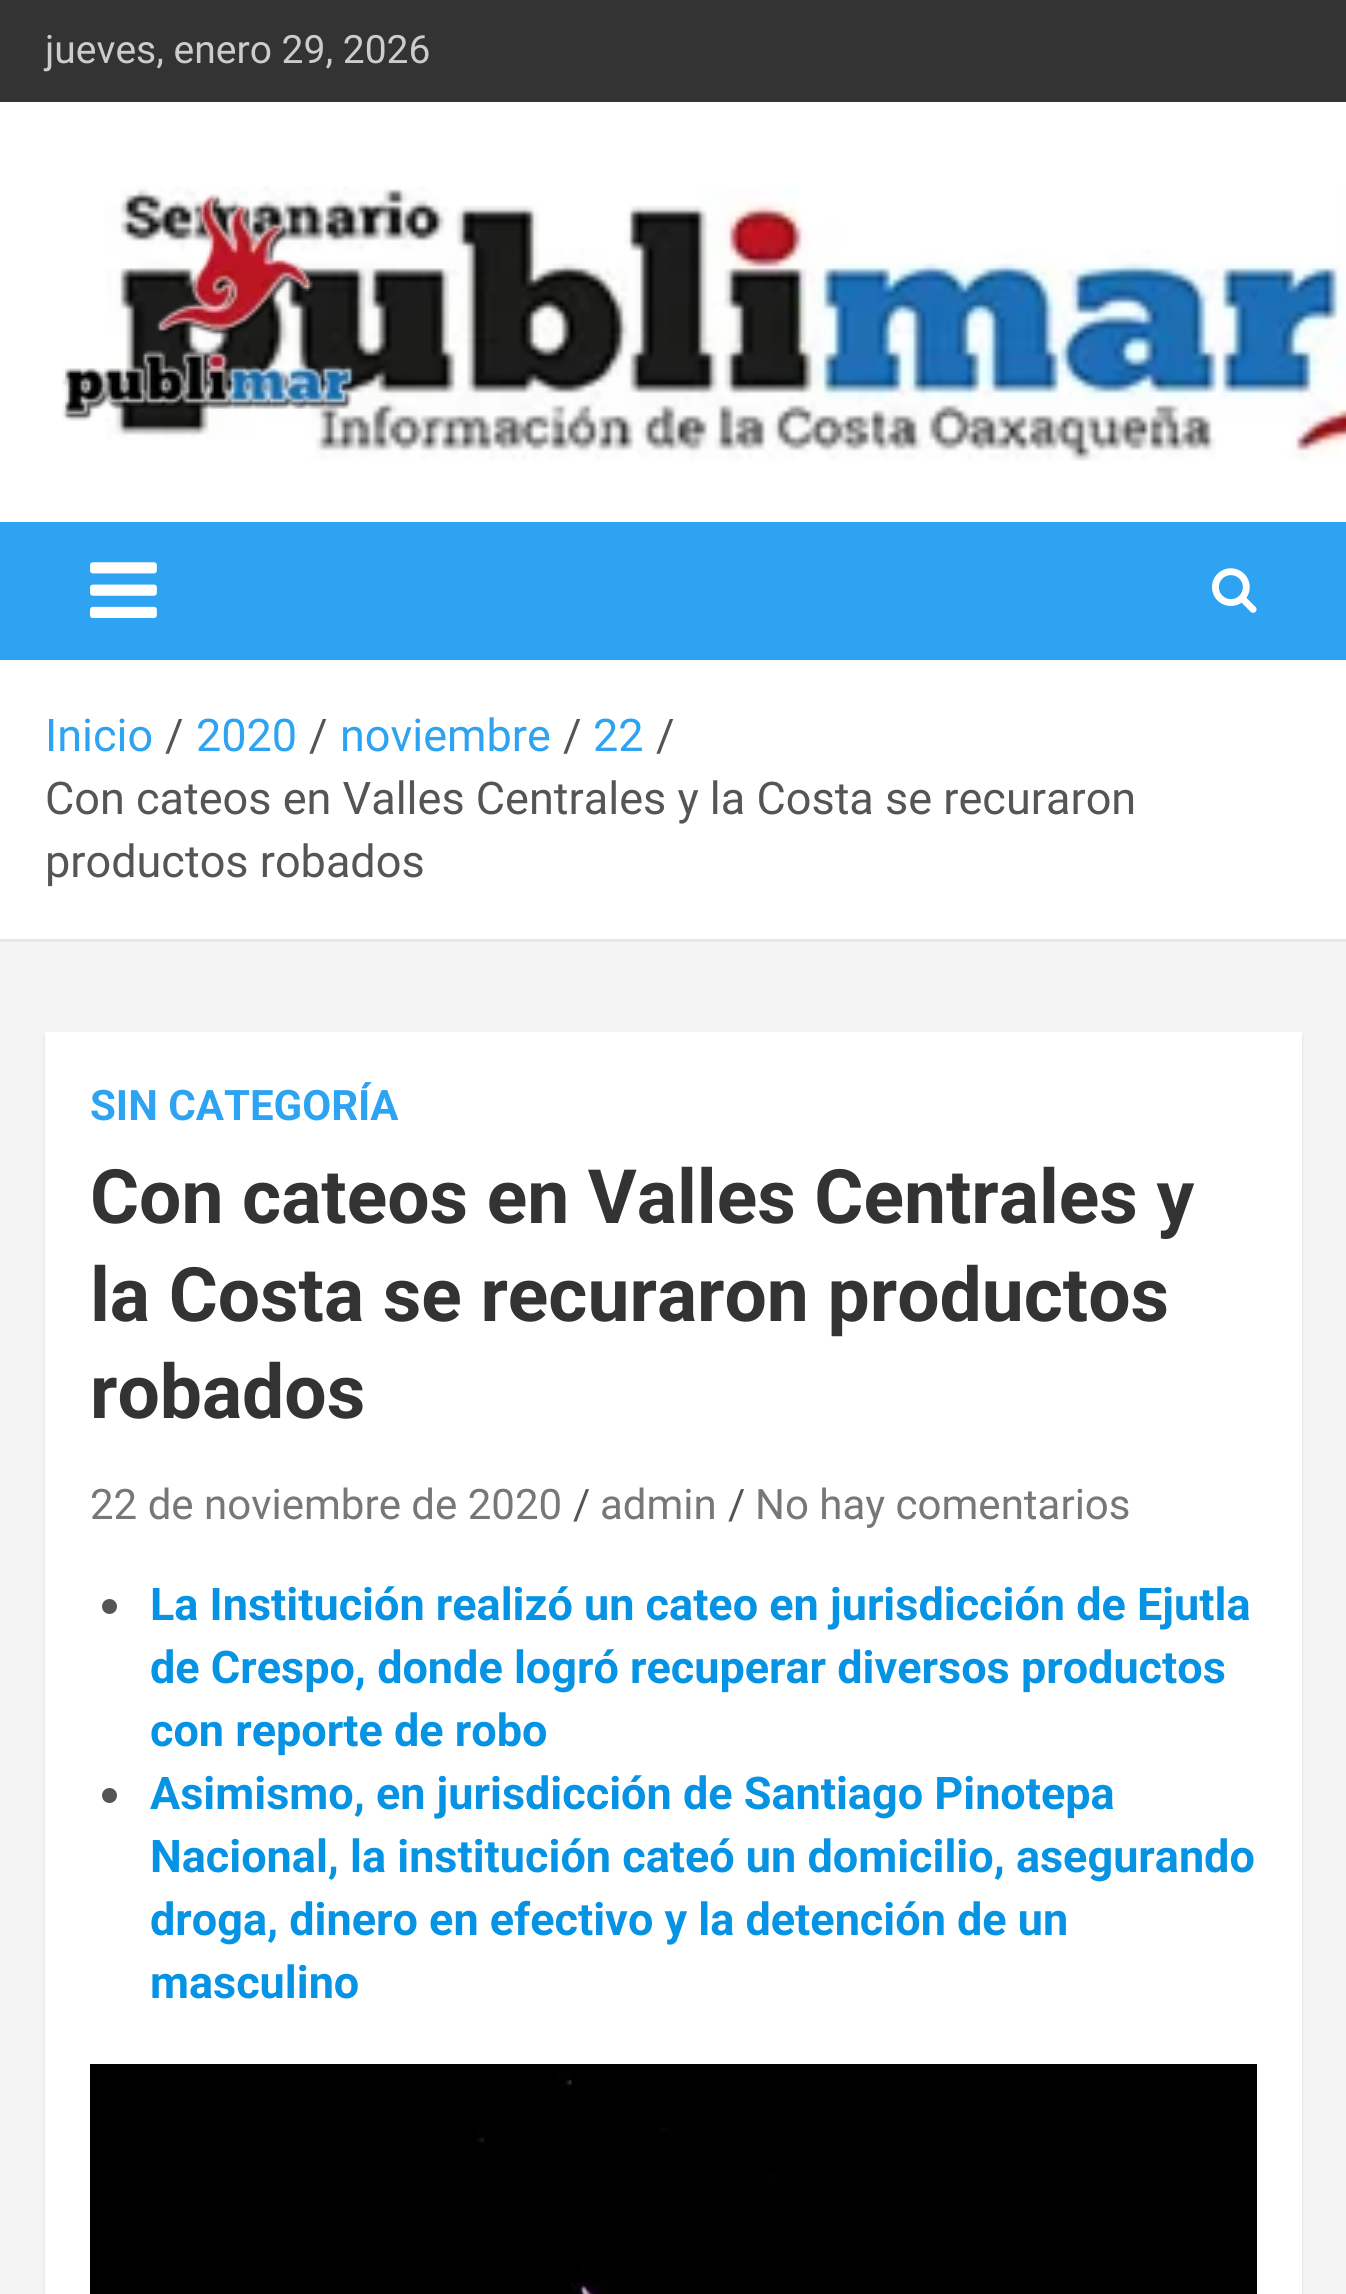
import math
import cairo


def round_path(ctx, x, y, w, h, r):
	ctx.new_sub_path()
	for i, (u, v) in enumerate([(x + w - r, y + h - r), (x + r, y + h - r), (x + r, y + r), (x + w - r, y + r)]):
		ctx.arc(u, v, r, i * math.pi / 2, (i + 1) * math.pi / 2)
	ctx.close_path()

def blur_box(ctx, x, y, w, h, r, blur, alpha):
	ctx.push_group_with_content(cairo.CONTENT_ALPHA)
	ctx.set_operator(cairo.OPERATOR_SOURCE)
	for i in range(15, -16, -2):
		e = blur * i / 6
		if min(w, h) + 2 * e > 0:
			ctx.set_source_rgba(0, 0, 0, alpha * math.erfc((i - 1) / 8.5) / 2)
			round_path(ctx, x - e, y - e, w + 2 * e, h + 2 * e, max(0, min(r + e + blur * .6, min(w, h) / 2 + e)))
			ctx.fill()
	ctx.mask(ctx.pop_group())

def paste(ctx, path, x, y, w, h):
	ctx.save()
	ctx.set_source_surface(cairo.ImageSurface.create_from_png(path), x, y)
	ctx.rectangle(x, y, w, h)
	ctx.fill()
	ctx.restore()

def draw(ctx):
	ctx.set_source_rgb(0.957, 0.957, 0.957)
	ctx.paint()
	ctx.set_source_rgb(0.2, 0.2, 0.2)
	ctx.rectangle(0, 0, 1346, 102)
	ctx.fill()
	ctx.select_font_face('Roboto')
	ctx.set_font_size(39)
	ctx.set_source_rgb(0.8, 0.8, 0.8)
	ctx.move_to(45, 63)
	ctx.show_text('jueves, enero 29, 2026')
	ctx.set_source_rgb(1, 1, 1)
	ctx.rectangle(0, 102, 1346, 420)
	ctx.fill()
	paste(ctx, 'media/1.png', 105, 186, 1241, 275)
	paste(ctx, 'media/2.png', 62, 194, 295, 227)
	ctx.set_source_rgb(0.18, 0.639, 0.949)
	ctx.rectangle(0, 522, 1346, 138)
	ctx.fill()
	paste(ctx, 'media/3.png', 90, 562, 67, 56)
	paste(ctx, 'media/4.png', 1212, 568, 45, 45)
	ctx.set_source_rgb(1, 1, 1)
	ctx.rectangle(0, 660, 1346, 279)
	ctx.fill()
	ctx.set_source_rgb(0.902, 0.902, 0.902)
	ctx.rectangle(0, 939, 1346, 3)
	ctx.fill()
	ctx.set_font_size(45)
	ctx.set_source_rgb(0.18, 0.639, 0.949)
	ctx.move_to(45, 751)
	ctx.show_text('Inicio')
	ctx.set_source_rgb(0.333, 0.333, 0.333)
	ctx.move_to(165, 751)
	ctx.show_text('/')
	ctx.set_source_rgb(0.18, 0.639, 0.949)
	ctx.move_to(196, 751)
	ctx.show_text('2020')
	ctx.set_source_rgb(0.333, 0.333, 0.333)
	ctx.move_to(309, 751)
	ctx.show_text('/')
	ctx.set_source_rgb(0.18, 0.639, 0.949)
	ctx.move_to(340, 751)
	ctx.show_text('noviembre')
	ctx.set_source_rgb(0.333, 0.333, 0.333)
	ctx.move_to(563, 751)
	ctx.show_text('/')
	ctx.set_source_rgb(0.18, 0.639, 0.949)
	ctx.move_to(593, 751)
	ctx.show_text('22')
	ctx.set_source_rgb(0.333, 0.333, 0.333)
	for x, y, s in [
		(656, 751, '/'),
		(45, 814, 'Con cateos en Valles Centrales y la Costa se recuraron'),
		(45, 877, 'productos robados'),
	]:
		ctx.move_to(x, y)
		ctx.show_text(s)
	ctx.set_source_rgb(0, 0, 0)
	blur_box(ctx, 45, 1035, 1257, 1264, 0, 1.5, 0.1)
	ctx.set_source_rgb(1, 1, 1)
	ctx.rectangle(45, 1032, 1257, 1262)
	ctx.fill()
	ctx.select_font_face('Roboto', cairo.FONT_SLANT_NORMAL, cairo.FONT_WEIGHT_BOLD)
	ctx.set_font_size(42)
	ctx.set_source_rgb(0.18, 0.639, 0.949)
	ctx.move_to(90, 1120)
	ctx.show_text('SIN CATEGORÍA')
	ctx.set_font_size(75)
	ctx.set_source_rgb(0.2, 0.2, 0.2)
	for x, y, s in [
		(90, 1223, 'Con cateos en Valles Centrales y'),
		(90, 1321, 'la Costa se recuraron productos'),
		(90, 1418, 'robados'),
	]:
		ctx.move_to(x, y)
		ctx.show_text(s)
	ctx.select_font_face('Roboto')
	ctx.set_font_size(42)
	ctx.set_source_rgb(0.467, 0.467, 0.467)
	ctx.move_to(90, 1519)
	ctx.show_text('22 de noviembre de 2020')
	ctx.set_source_rgb(0.333, 0.333, 0.333)
	ctx.move_to(573, 1519)
	ctx.show_text('/')
	ctx.set_source_rgb(0.467, 0.467, 0.467)
	ctx.move_to(600, 1519)
	ctx.show_text('admin')
	ctx.set_source_rgb(0.333, 0.333, 0.333)
	ctx.move_to(728, 1519)
	ctx.show_text('/')
	ctx.set_source_rgb(0.467, 0.467, 0.467)
	ctx.move_to(755, 1519)
	ctx.show_text('No hay comentarios')
	ctx.set_source_rgb(0.333, 0.333, 0.333)
	ctx.new_path()
	ctx.arc(109.5, 1606.5, 7.5, 0, 2 * math.pi)
	ctx.fill()
	ctx.select_font_face('Roboto', cairo.FONT_SLANT_NORMAL, cairo.FONT_WEIGHT_BOLD)
	ctx.set_font_size(45)
	ctx.set_source_rgb(0.024, 0.576, 0.89)
	for x, y, s in [
		(150, 1620, 'La Institución realizó un cateo en jurisdicción de Ejutla'),
		(150, 1683, 'de Crespo, donde logró recuperar diversos productos'),
		(150, 1746, 'con reporte de robo'),
	]:
		ctx.move_to(x, y)
		ctx.show_text(s)
	ctx.set_source_rgb(0.333, 0.333, 0.333)
	ctx.new_path()
	ctx.arc(109.5, 1795.5, 7.5, 0, 2 * math.pi)
	ctx.fill()
	ctx.set_source_rgb(0.024, 0.576, 0.89)
	for x, y, s in [
		(150, 1809, 'Asimismo, en jurisdicción de Santiago Pinotepa'),
		(150, 1872, 'Nacional, la institución cateó un domicilio, asegurando'),
		(150, 1935, 'droga, dinero en efectivo y la detención de un'),
		(150, 1998, 'masculino'),
	]:
		ctx.move_to(x, y)
		ctx.show_text(s)
	paste(ctx, 'media/5.png', 90, 2064, 1167, 230)


surface = cairo.ImageSurface(cairo.FORMAT_RGB24, 1346, 2294)
ctx = cairo.Context(surface)
options = cairo.FontOptions()
options.set_hint_metrics(cairo.HINT_METRICS_OFF)
options.set_hint_style(cairo.HINT_STYLE_NONE)
ctx.set_font_options(options)
ctx.set_miter_limit(4)
draw(ctx)
surface.write_to_png('image.png')
